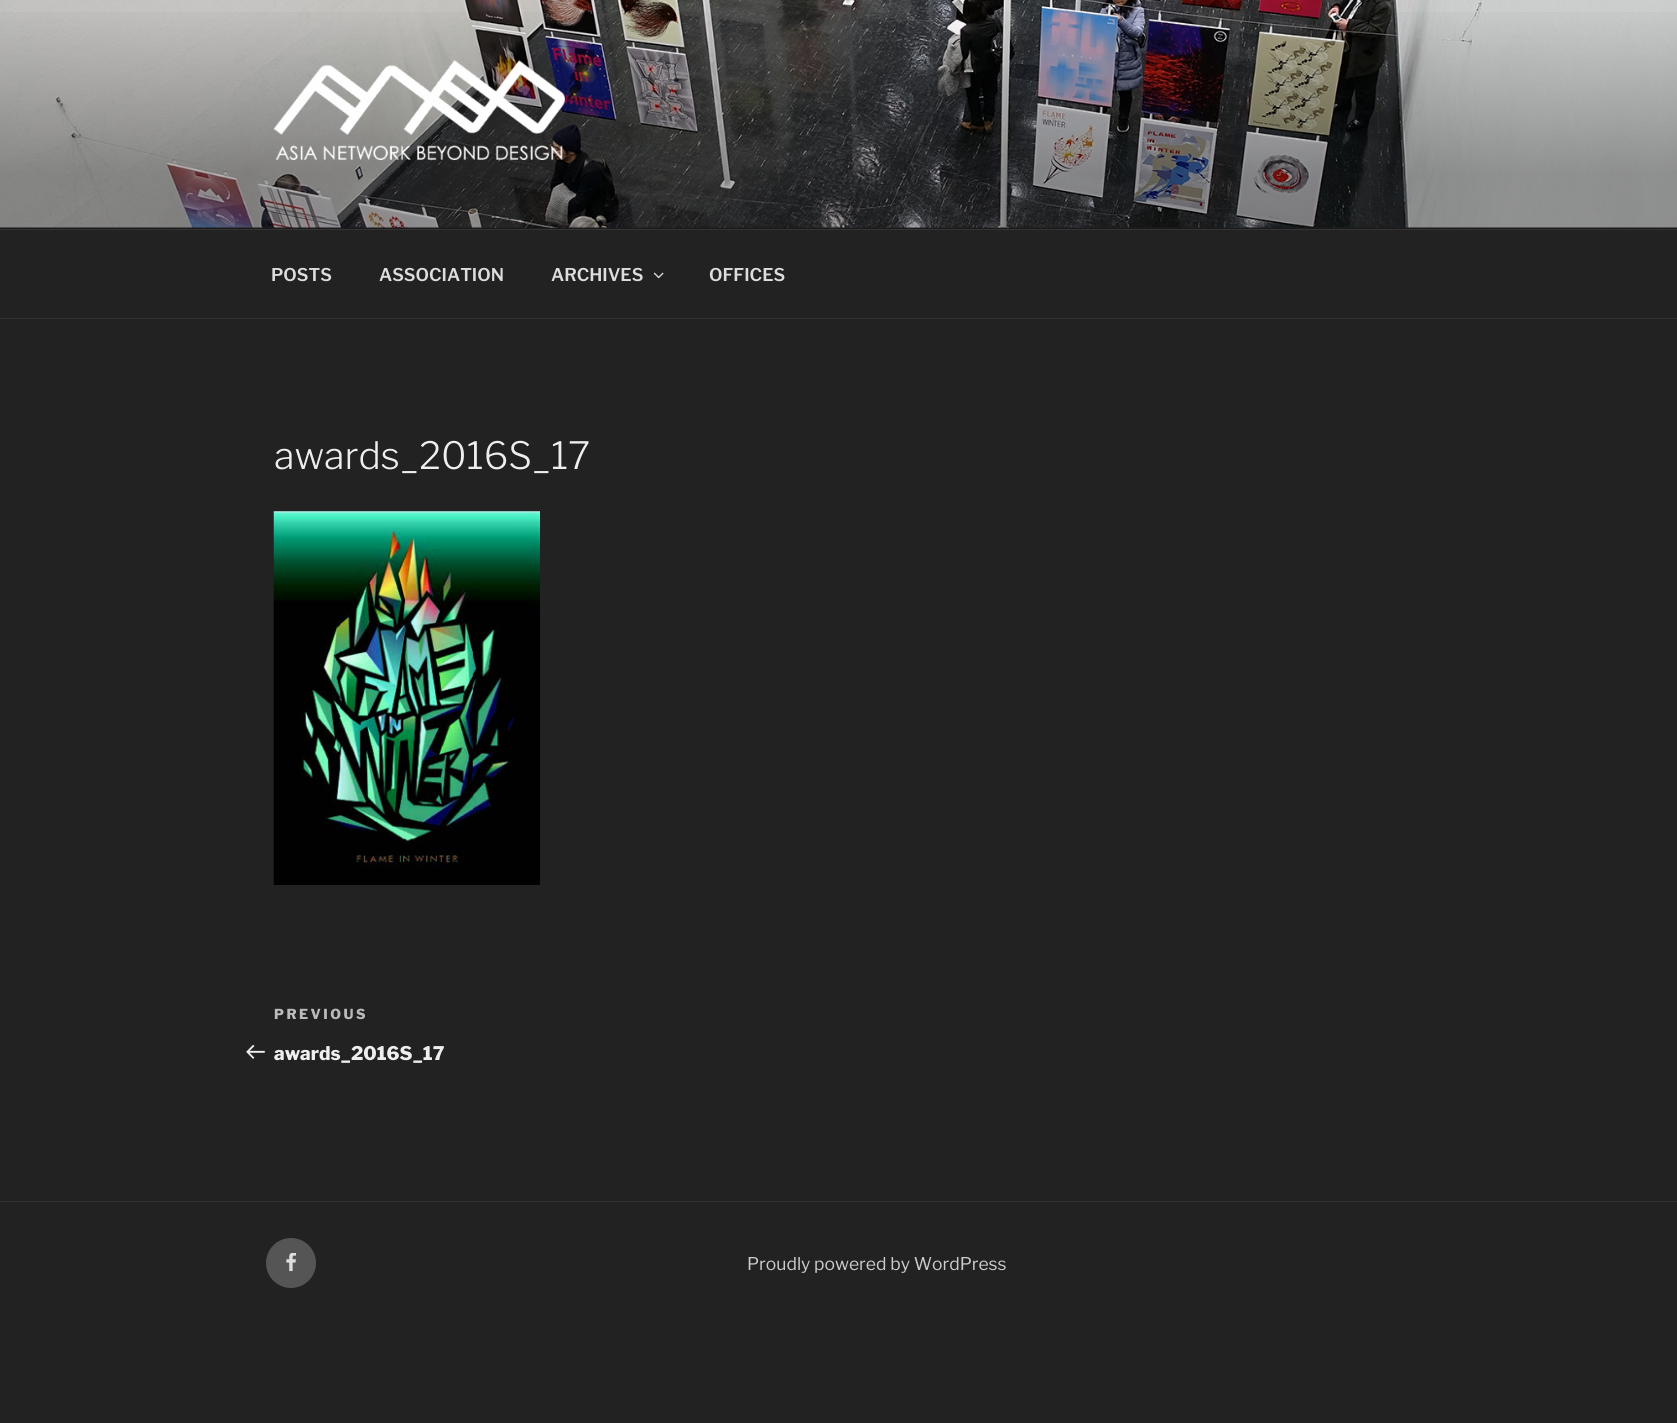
import math
import cairo


def write_spaced(ctx, x, y, s, letter, word):
	ctx.move_to(x, y)
	for ch in s:
		ctx.show_text(ch)
		ctx.rel_move_to(letter + word * (ch == ' '), 0)

def paste(ctx, path, x, y, w, h):
	ctx.save()
	ctx.set_source_surface(cairo.ImageSurface.create_from_png(path), x, y)
	ctx.rectangle(x, y, w, h)
	ctx.fill()
	ctx.restore()

def draw(ctx):
	ctx.set_source_rgb(0.133, 0.133, 0.133)
	ctx.paint()
	ctx.set_source_rgb(0.149, 0.149, 0.149)
	ctx.rectangle(0, 227, 1677, 2)
	ctx.fill()
	paste(ctx, 'media/1.png', 0, 0, 1677, 228)
	gradient = cairo.LinearGradient(839, 0, 839, 229)
	gradient.add_color_stop_rgba(0, 0, 0, 0, 0)
	gradient.add_color_stop_rgba(0.75, 0, 0, 0, 0.3)
	gradient.add_color_stop_rgba(1, 0, 0, 0, 0.3)
	ctx.set_source(gradient)
	ctx.rectangle(0, 12, 1677, 217)
	ctx.fill()
	paste(ctx, 'media/2.png', 273, 60, 292, 100)
	ctx.set_source_rgb(0.2, 0.2, 0.2)
	ctx.rectangle(0, 229, 1677, 1)
	ctx.fill()
	ctx.rectangle(0, 318, 1677, 1)
	ctx.fill()
	ctx.select_font_face('Libre Franklin SemiBold')
	ctx.set_font_size(17.5)
	ctx.set_source_rgb(0.867, 0.867, 0.867)
	for x, y, s in [
		(271, 281, 'POSTS'),
		(379, 281, 'ASSOCIATION'),
		(551, 281, 'ARCHIVES'),
	]:
		ctx.move_to(x, y)
		ctx.show_text(s)
	paste(ctx, 'media/3.png', 653, 272, 11, 7)
	ctx.move_to(709, 281)
	ctx.show_text('OFFICES')
	ctx.select_font_face('Libre Franklin Light')
	ctx.set_font_size(37.5)
	ctx.set_source_rgb(0.933, 0.933, 0.933)
	ctx.move_to(274, 469)
	ctx.show_text('awards_2016S_17')
	paste(ctx, 'media/4.png', 273, 511, 267, 374)
	ctx.select_font_face('Libre Franklin ExtraBold')
	ctx.set_font_size(13.75)
	ctx.set_source_rgb(0.733, 0.733, 0.733)
	write_spaced(ctx, 274, 1019, 'PREVIOUS', 2.5, 0)
	paste(ctx, 'media/5.png', 246, 1045, 19, 14)
	ctx.set_font_size(18.75)
	ctx.set_source_rgb(0.933, 0.933, 0.933)
	ctx.move_to(274, 1060)
	ctx.show_text('awards_2016S_17')
	ctx.set_source_rgb(0.2, 0.2, 0.2)
	ctx.rectangle(0, 1201, 1677, 1)
	ctx.fill()
	ctx.set_source_rgb(0.333, 0.333, 0.333)
	ctx.arc(291, 1263, 25, 0, 2 * math.pi)
	ctx.fill()
	paste(ctx, 'media/6.png', 286, 1253, 10, 19)
	ctx.select_font_face('Libre Franklin')
	ctx.set_font_size(17.5)
	ctx.set_source_rgb(0.8, 0.8, 0.8)
	ctx.move_to(747, 1270)
	ctx.show_text('Proudly powered by WordPress')


surface = cairo.ImageSurface(cairo.FORMAT_RGB24, 1677, 1423)
ctx = cairo.Context(surface)
options = cairo.FontOptions()
options.set_hint_metrics(cairo.HINT_METRICS_OFF)
options.set_hint_style(cairo.HINT_STYLE_NONE)
ctx.set_font_options(options)
ctx.set_miter_limit(4)
draw(ctx)
surface.write_to_png('image.png')
